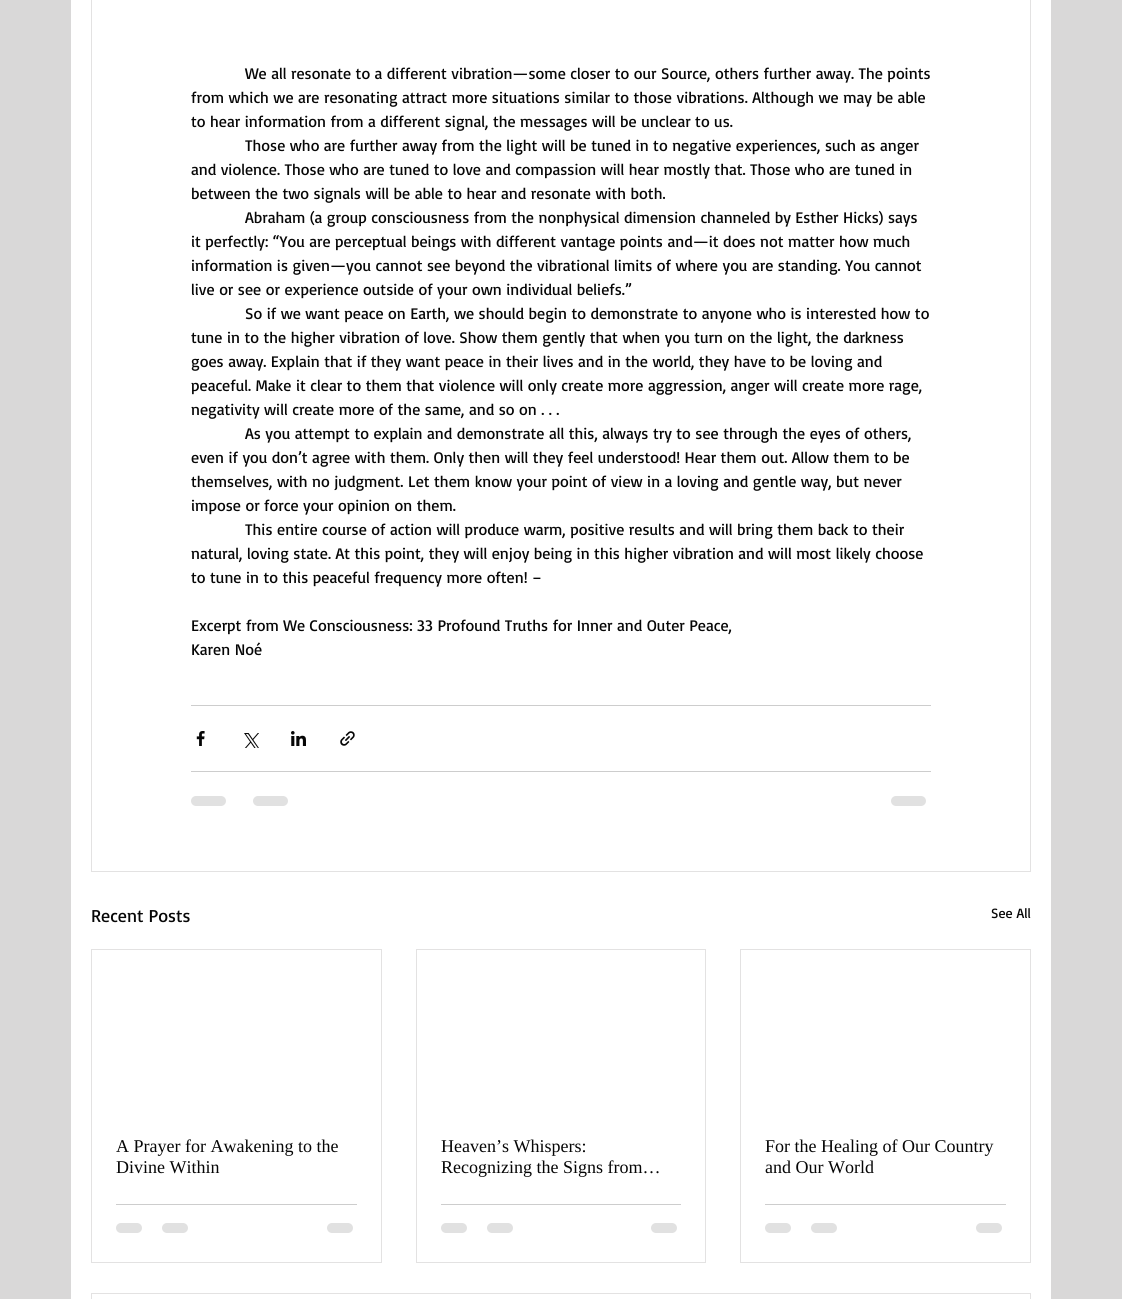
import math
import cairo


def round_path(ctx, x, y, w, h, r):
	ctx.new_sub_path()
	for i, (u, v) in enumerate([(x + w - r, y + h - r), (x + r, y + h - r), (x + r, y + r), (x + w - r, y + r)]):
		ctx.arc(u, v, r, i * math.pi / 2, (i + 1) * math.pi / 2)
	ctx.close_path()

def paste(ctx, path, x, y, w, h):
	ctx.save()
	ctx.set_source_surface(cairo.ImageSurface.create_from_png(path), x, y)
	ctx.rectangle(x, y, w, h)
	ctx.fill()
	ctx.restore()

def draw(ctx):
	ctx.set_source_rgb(0.851, 0.847, 0.847)
	ctx.paint()
	ctx.set_source_rgb(1, 1, 1)
	ctx.rectangle(71, 0, 980, 1299)
	ctx.fill()
	ctx.rectangle(91.5, -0.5, 939, 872)
	ctx.set_source_rgb(0.89, 0.886, 0.886)
	ctx.set_line_width(1)
	ctx.stroke()
	ctx.select_font_face('Basic')
	ctx.set_font_size(16)
	ctx.set_source_rgb(0.024, 0.024, 0.024)
	for x, y, s in [
		(245, 79, 'We all resonate to a different vibration—some closer to our Source, others further away. The points'),
		(191, 103, 'from which we are resonating attract more situations similar to those vibrations. Although we may be able'),
		(191, 127, 'to hear information from a different signal, the messages will be unclear to us.'),
		(245, 151, 'Those who are further away from the light will be tuned in to negative experiences, such as anger'),
		(191, 175, 'and violence. Those who are tuned to love and compassion will hear mostly that. Those who are tuned in'),
		(191, 199, 'between the two signals will be able to hear and resonate with both.'),
		(245, 223, 'Abraham (a group consciousness from the nonphysical dimension channeled by Esther Hicks) says'),
		(191, 247, 'it perfectly: “You are perceptual beings with different vantage points and—it does not matter how much'),
		(191, 271, 'information is given—you cannot see beyond the vibrational limits of where you are standing. You cannot'),
		(191, 295, 'live or see or experience outside of your own individual beliefs.”'),
		(245, 319, 'So if we want peace on Earth, we should begin to demonstrate to anyone who is interested how to'),
		(191, 343, 'tune in to the higher vibration of love. Show them gently that when you turn on the light, the darkness'),
		(191, 367, 'goes away. Explain that if they want peace in their lives and in the world, they have to be loving and'),
		(191, 391, 'peaceful. Make it clear to them that violence will only create more aggression, anger will create more rage,'),
		(191, 415, 'negativity will create more of the same, and so on . . .'),
		(245, 439, 'As you attempt to explain and demonstrate all this, always try to see through the eyes of others,'),
		(191, 463, 'even if you don’t agree with them. Only then will they feel understood! Hear them out. Allow them to be'),
		(191, 487, 'themselves, with no judgment. Let them know your point of view in a loving and gentle way, but never'),
		(191, 511, 'impose or force your opinion on them.'),
		(245, 535, 'This entire course of action will produce warm, positive results and will bring them back to their'),
		(191, 559, 'natural, loving state. At this point, they will enjoy being in this higher vibration and will most likely choose'),
		(191, 583, 'to tune in to this peaceful frequency more often! –'),
		(191, 631, 'Excerpt from We Consciousness: 33 Profound Truths for Inner and Outer Peace,'),
		(191, 655, 'Karen Noé'),
	]:
		ctx.move_to(x, y)
		ctx.show_text(s)
	ctx.set_source_rgb(0.804, 0.804, 0.804)
	ctx.rectangle(191, 705, 740, 1)
	ctx.fill()
	paste(ctx, 'media/1.png', 196, 731, 9, 15)
	paste(ctx, 'media/2.png', 244, 733, 15, 15)
	paste(ctx, 'media/3.png', 291, 731, 15, 15)
	paste(ctx, 'media/4.png', 340, 731, 15, 15)
	ctx.rectangle(191, 771, 740, 1)
	ctx.fill()
	ctx.set_source_rgb(0.882, 0.882, 0.882)
	round_path(ctx, 191, 796, 35, 10, 5)
	ctx.fill()
	round_path(ctx, 253, 796, 35, 10, 5)
	ctx.fill()
	round_path(ctx, 891, 796, 35, 10, 5)
	ctx.fill()
	ctx.set_font_size(18)
	ctx.set_source_rgb(0.024, 0.024, 0.024)
	ctx.move_to(91, 922)
	ctx.show_text('Recent Posts')
	ctx.set_font_size(14)
	ctx.move_to(991, 918)
	ctx.show_text('See All')
	ctx.rectangle(91.5, 949.5, 290, 313)
	ctx.set_source_rgb(0.89, 0.886, 0.886)
	ctx.stroke()
	ctx.select_font_face('Liberation Serif')
	ctx.set_font_size(18)
	ctx.set_source_rgb(0.024, 0.024, 0.024)
	ctx.move_to(116, 1152)
	ctx.show_text('A Prayer for Awakening to the')
	ctx.move_to(116, 1173)
	ctx.show_text('Divine Within')
	ctx.set_source_rgb(0.804, 0.804, 0.804)
	ctx.rectangle(116, 1204, 241, 1)
	ctx.fill()
	ctx.set_source_rgb(0.882, 0.882, 0.882)
	round_path(ctx, 116, 1223, 26, 10, 5)
	ctx.fill()
	round_path(ctx, 162, 1223, 26, 10, 5)
	ctx.fill()
	round_path(ctx, 327, 1223, 26, 10, 5)
	ctx.fill()
	ctx.rectangle(416.5, 949.5, 289, 313)
	ctx.set_source_rgb(0.89, 0.886, 0.886)
	ctx.stroke()
	ctx.set_source_rgb(0.024, 0.024, 0.024)
	ctx.move_to(441, 1152)
	ctx.show_text('Heaven’s Whispers:')
	ctx.move_to(441, 1173)
	ctx.show_text('Recognizing the Signs from…')
	ctx.set_source_rgb(0.804, 0.804, 0.804)
	ctx.rectangle(441, 1204, 240, 1)
	ctx.fill()
	ctx.set_source_rgb(0.882, 0.882, 0.882)
	round_path(ctx, 441, 1223, 26, 10, 5)
	ctx.fill()
	round_path(ctx, 487, 1223, 26, 10, 5)
	ctx.fill()
	round_path(ctx, 651, 1223, 26, 10, 5)
	ctx.fill()
	ctx.rectangle(740.5, 949.5, 290, 313)
	ctx.set_source_rgb(0.89, 0.886, 0.886)
	ctx.stroke()
	ctx.set_source_rgb(0.024, 0.024, 0.024)
	ctx.move_to(765, 1152)
	ctx.show_text('For the Healing of Our Country')
	ctx.move_to(765, 1173)
	ctx.show_text('and Our World')
	ctx.set_source_rgb(0.804, 0.804, 0.804)
	ctx.rectangle(765, 1204, 241, 1)
	ctx.fill()
	ctx.set_source_rgb(0.882, 0.882, 0.882)
	round_path(ctx, 765, 1223, 26, 10, 5)
	ctx.fill()
	round_path(ctx, 811, 1223, 26, 10, 5)
	ctx.fill()
	round_path(ctx, 976, 1223, 26, 10, 5)
	ctx.fill()
	ctx.rectangle(91.5, 1293.5, 939, 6)
	ctx.set_source_rgb(0.89, 0.886, 0.886)
	ctx.stroke()


surface = cairo.ImageSurface(cairo.FORMAT_RGB24, 1122, 1299)
ctx = cairo.Context(surface)
options = cairo.FontOptions()
options.set_hint_metrics(cairo.HINT_METRICS_OFF)
options.set_hint_style(cairo.HINT_STYLE_NONE)
ctx.set_font_options(options)
ctx.set_miter_limit(4)
draw(ctx)
surface.write_to_png('image.png')
